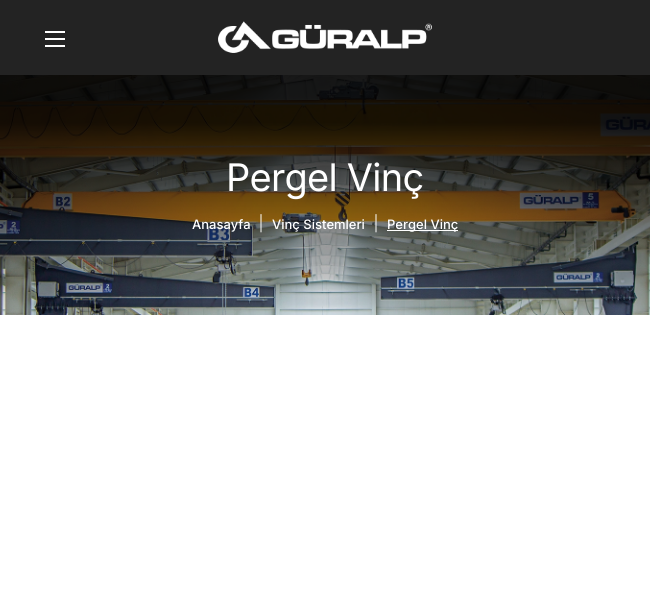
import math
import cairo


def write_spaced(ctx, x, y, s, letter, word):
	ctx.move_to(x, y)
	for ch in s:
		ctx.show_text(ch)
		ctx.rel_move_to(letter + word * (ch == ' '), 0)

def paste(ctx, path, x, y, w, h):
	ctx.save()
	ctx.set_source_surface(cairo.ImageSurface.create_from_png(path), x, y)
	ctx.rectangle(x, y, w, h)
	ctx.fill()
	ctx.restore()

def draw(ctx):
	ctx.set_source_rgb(1, 1, 1)
	ctx.paint()
	ctx.set_source_rgb(0.137, 0.137, 0.137)
	ctx.rectangle(0, 0, 650, 75)
	ctx.fill()
	ctx.set_source_rgb(1, 1, 1)
	ctx.rectangle(45, 31, 20, 2)
	ctx.rectangle(45, 38, 20, 2)
	ctx.rectangle(45, 45, 20, 2)
	ctx.fill()
	paste(ctx, 'media/1.png', 218, 21, 214, 32)
	paste(ctx, 'media/2.png', 0, 75, 650, 240)
	ctx.select_font_face('Inter')
	ctx.set_font_size(38)
	write_spaced(ctx, 226, 191, 'Pergel Vinç', -0.75, 0)
	ctx.select_font_face('Inter Medium')
	ctx.set_font_size(13)
	ctx.move_to(192, 229)
	ctx.show_text('Anasayfa')
	ctx.select_font_face('Liberation Serif')
	ctx.set_font_size(20)
	ctx.move_to(259, 228)
	ctx.show_text('|')
	ctx.select_font_face('Inter Medium')
	ctx.set_font_size(13)
	ctx.move_to(272, 229)
	ctx.show_text('Vinç Sistemleri')
	ctx.select_font_face('Liberation Serif')
	ctx.set_font_size(20)
	ctx.move_to(374, 228)
	ctx.show_text('|')
	ctx.rectangle(387, 230, 71, 1)
	ctx.fill()
	ctx.select_font_face('Inter Medium')
	ctx.set_font_size(13)
	ctx.move_to(387, 229)
	ctx.show_text('Pergel Vinç')


surface = cairo.ImageSurface(cairo.FORMAT_RGB24, 650, 606)
ctx = cairo.Context(surface)
options = cairo.FontOptions()
options.set_hint_metrics(cairo.HINT_METRICS_OFF)
options.set_hint_style(cairo.HINT_STYLE_NONE)
ctx.set_font_options(options)
ctx.set_miter_limit(4)
draw(ctx)
surface.write_to_png('image.png')
